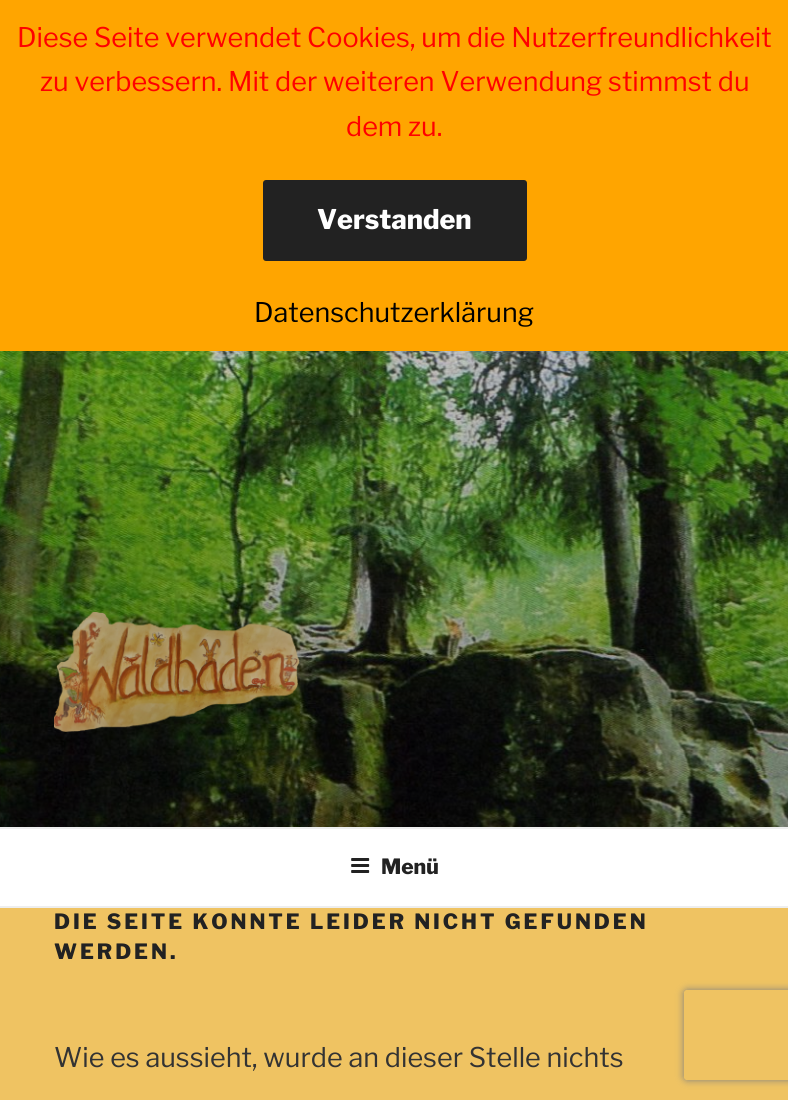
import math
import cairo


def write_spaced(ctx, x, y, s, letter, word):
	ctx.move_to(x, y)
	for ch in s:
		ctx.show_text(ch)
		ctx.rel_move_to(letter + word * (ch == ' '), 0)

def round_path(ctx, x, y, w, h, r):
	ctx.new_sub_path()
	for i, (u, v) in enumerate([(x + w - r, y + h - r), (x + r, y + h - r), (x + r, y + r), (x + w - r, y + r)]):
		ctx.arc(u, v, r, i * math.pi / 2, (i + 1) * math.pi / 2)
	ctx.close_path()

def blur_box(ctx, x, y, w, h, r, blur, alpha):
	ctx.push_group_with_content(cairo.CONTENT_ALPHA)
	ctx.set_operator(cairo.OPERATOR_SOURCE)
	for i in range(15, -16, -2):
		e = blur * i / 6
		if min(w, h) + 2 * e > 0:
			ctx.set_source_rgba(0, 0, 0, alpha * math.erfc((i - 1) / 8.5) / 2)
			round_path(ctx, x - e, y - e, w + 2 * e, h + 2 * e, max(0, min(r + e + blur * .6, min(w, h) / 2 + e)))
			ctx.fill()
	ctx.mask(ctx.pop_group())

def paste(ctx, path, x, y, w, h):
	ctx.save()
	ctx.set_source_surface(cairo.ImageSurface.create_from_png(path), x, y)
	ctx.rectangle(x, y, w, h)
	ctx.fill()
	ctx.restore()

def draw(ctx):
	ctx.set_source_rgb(1, 1, 1)
	ctx.paint()
	ctx.set_source_rgb(1, 0.647, 0)
	ctx.rectangle(0, 0, 788, 351)
	ctx.fill()
	ctx.select_font_face('Libre Franklin')
	ctx.set_font_size(27)
	ctx.set_source_rgb(1, 0, 0)
	for x, y, s in [
		(17, 47, 'Diese Seite verwendet Cookies, um die Nutzerfreundlichkeit'),
		(40, 91, 'zu verbessern. Mit der weiteren Verwendung stimmst du'),
		(346, 136, 'dem zu.'),
	]:
		ctx.move_to(x, y)
		ctx.show_text(s)
	ctx.set_source_rgb(0.133, 0.133, 0.133)
	round_path(ctx, 263, 180, 264, 81, 3)
	ctx.fill()
	ctx.select_font_face('Libre Franklin ExtraBold')
	ctx.set_source_rgb(1, 1, 1)
	ctx.move_to(317, 229)
	ctx.show_text('Verstanden')
	ctx.select_font_face('Libre Franklin')
	ctx.set_source_rgb(0, 0, 0)
	ctx.move_to(254, 322)
	ctx.show_text('Datenschutzerklärung')
	paste(ctx, 'media/1.png', 0, 351, 788, 476)
	paste(ctx, 'media/2.png', 54, 612, 246, 120)
	ctx.set_source_rgb(0.933, 0.933, 0.933)
	ctx.rectangle(0, 827, 788, 2)
	ctx.fill()
	ctx.rectangle(0, 906, 788, 2)
	ctx.fill()
	paste(ctx, 'media/3.png', 351, 858, 19, 15)
	ctx.select_font_face('Libre Franklin ExtraBold')
	ctx.set_font_size(21)
	ctx.set_source_rgb(0.133, 0.133, 0.133)
	ctx.move_to(381, 874)
	ctx.show_text('Menü')
	ctx.set_source_rgb(0.937, 0.765, 0.384)
	ctx.rectangle(0, 908, 788, 192)
	ctx.fill()
	ctx.set_source_rgb(0.133, 0.133, 0.133)
	write_spaced(ctx, 54, 929, 'DIE SEITE KONNTE LEIDER NICHT GEFUNDEN', 2.95, 0)
	write_spaced(ctx, 54, 959, 'WERDEN.', 2.95, 0)
	ctx.select_font_face('Libre Franklin')
	ctx.set_font_size(27)
	ctx.set_source_rgb(0.2, 0.2, 0.2)
	ctx.move_to(54, 1067)
	ctx.show_text('Wie es aussieht, wurde an dieser Stelle nichts')
	ctx.save()
	ctx.set_fill_rule(cairo.FILL_RULE_EVEN_ODD)
	ctx.new_path()
	ctx.move_to(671, 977)
	ctx.line_to(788, 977)
	ctx.line_to(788, 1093)
	ctx.line_to(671, 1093)
	ctx.close_path()
	ctx.move_to(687, 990)
	ctx.line_to(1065, 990)
	ctx.curve_to(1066.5, 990, 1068, 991.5, 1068, 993)
	ctx.line_to(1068, 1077)
	ctx.curve_to(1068, 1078.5, 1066.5, 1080, 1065, 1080)
	ctx.line_to(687, 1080)
	ctx.curve_to(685.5, 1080, 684, 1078.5, 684, 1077)
	ctx.line_to(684, 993)
	ctx.curve_to(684, 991.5, 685.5, 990, 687, 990)
	ctx.close_path()
	ctx.clip()
	ctx.set_source_rgb(0.502, 0.502, 0.502)
	blur_box(ctx, 684, 990, 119, 90, 3, 4, 1)
	ctx.restore()


surface = cairo.ImageSurface(cairo.FORMAT_RGB24, 788, 1100)
ctx = cairo.Context(surface)
options = cairo.FontOptions()
options.set_hint_metrics(cairo.HINT_METRICS_OFF)
options.set_hint_style(cairo.HINT_STYLE_NONE)
ctx.set_font_options(options)
ctx.set_miter_limit(4)
draw(ctx)
surface.write_to_png('image.png')
